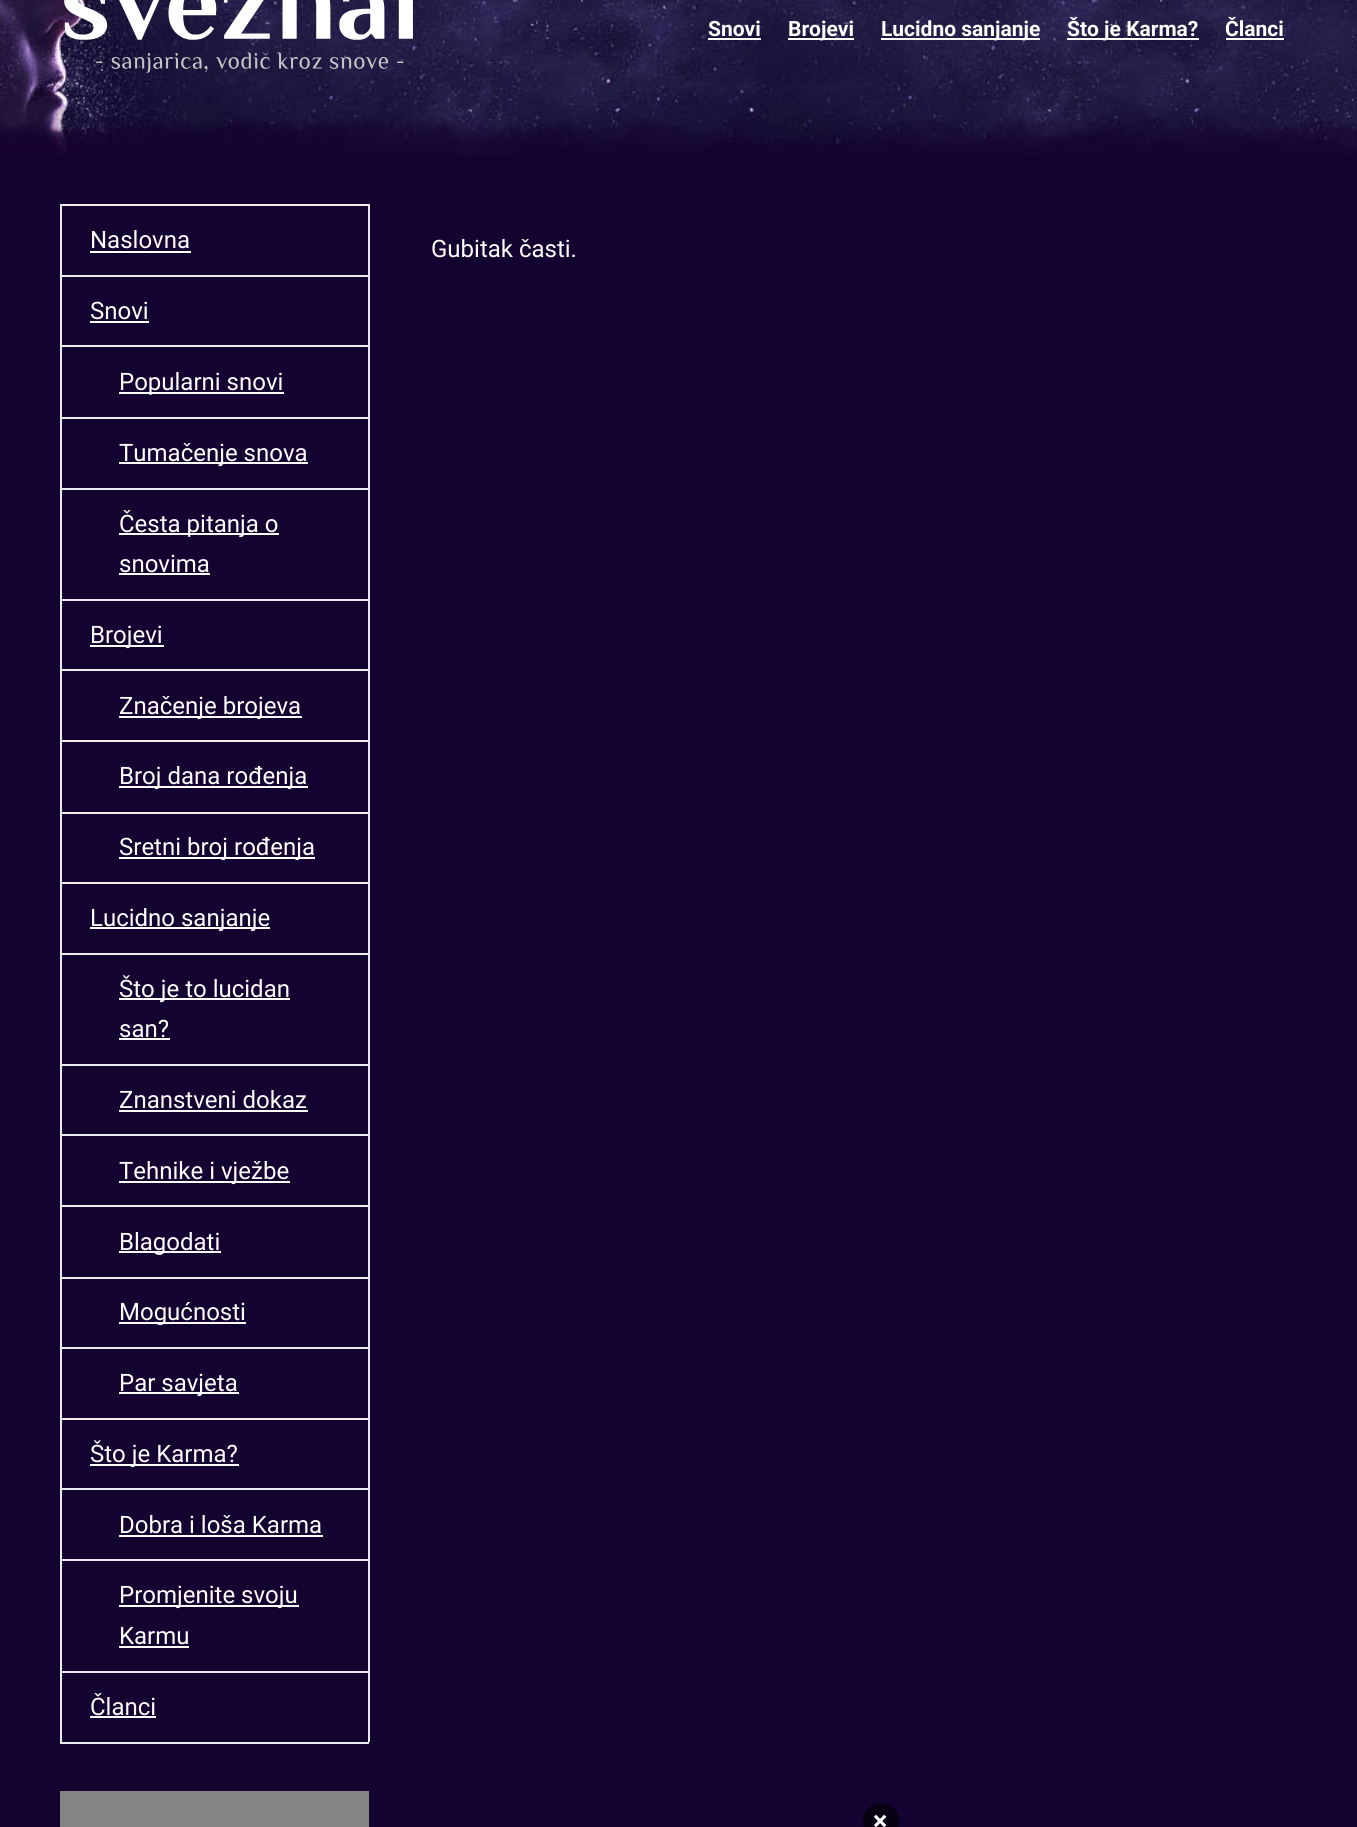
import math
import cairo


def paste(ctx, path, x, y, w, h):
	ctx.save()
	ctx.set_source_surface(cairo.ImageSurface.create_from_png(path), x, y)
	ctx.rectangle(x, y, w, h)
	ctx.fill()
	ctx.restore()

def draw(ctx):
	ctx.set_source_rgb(0.082, 0.008, 0.188)
	ctx.paint()
	paste(ctx, 'media/1.png', 0, 0, 1357, 156)
	paste(ctx, 'media/2.png', 64, 0, 349, 73)
	ctx.select_font_face('Roboto', cairo.FONT_SLANT_NORMAL, cairo.FONT_WEIGHT_BOLD)
	ctx.set_font_size(21)
	ctx.set_source_rgb(1, 1, 1)
	ctx.move_to(708, 36)
	ctx.show_text('Snovi')
	ctx.rectangle(708, 38, 53, 2)
	ctx.fill()
	ctx.rectangle(788, 38, 66, 2)
	ctx.fill()
	ctx.move_to(788, 36)
	ctx.show_text('Brojevi')
	ctx.rectangle(881, 38, 159, 2)
	ctx.fill()
	ctx.move_to(881, 36)
	ctx.show_text('Lucidno sanjanje')
	ctx.rectangle(1067, 38, 132, 2)
	ctx.fill()
	ctx.move_to(1067, 36)
	ctx.show_text('Što je Karma?')
	ctx.move_to(1225, 36)
	ctx.show_text('Članci')
	ctx.rectangle(1226, 38, 58, 2)
	ctx.fill()
	ctx.set_source_rgb(0.922, 0.922, 0.922)
	ctx.rectangle(60, 1742, 309, 2)
	ctx.rectangle(60, 204, 309, 2)
	ctx.rectangle(368, 204, 2, 71)
	ctx.rectangle(60, 204, 2, 71)
	ctx.fill()
	ctx.select_font_face('Roboto')
	ctx.set_font_size(24)
	ctx.set_source_rgb(1, 1, 1)
	ctx.move_to(90, 248)
	ctx.show_text('Naslovna')
	ctx.rectangle(90, 251, 101, 2)
	ctx.fill()
	ctx.set_source_rgb(0.922, 0.922, 0.922)
	ctx.rectangle(60, 275, 309, 2)
	ctx.rectangle(368, 275, 2, 70)
	ctx.rectangle(60, 275, 2, 70)
	ctx.fill()
	ctx.set_source_rgb(1, 1, 1)
	ctx.move_to(90, 319)
	ctx.show_text('Snovi')
	ctx.rectangle(90, 321, 59, 2)
	ctx.fill()
	ctx.set_source_rgb(0.922, 0.922, 0.922)
	ctx.rectangle(60, 345, 309, 2)
	ctx.rectangle(368, 345, 2, 72)
	ctx.rectangle(60, 345, 2, 72)
	ctx.fill()
	ctx.set_source_rgb(1, 1, 1)
	ctx.rectangle(119, 392, 165, 2)
	ctx.fill()
	ctx.move_to(119, 390)
	ctx.show_text('Popularni snovi')
	ctx.set_source_rgb(0.922, 0.922, 0.922)
	ctx.rectangle(60, 417, 309, 2)
	ctx.rectangle(368, 417, 2, 71)
	ctx.rectangle(60, 417, 2, 71)
	ctx.fill()
	ctx.set_source_rgb(1, 1, 1)
	ctx.rectangle(119, 462, 189, 2)
	ctx.fill()
	ctx.move_to(119, 461)
	ctx.show_text('Tumačenje snova')
	ctx.set_source_rgb(0.922, 0.922, 0.922)
	ctx.rectangle(60, 488, 309, 2)
	ctx.rectangle(368, 488, 2, 111)
	ctx.rectangle(60, 488, 2, 111)
	ctx.fill()
	ctx.set_source_rgb(1, 1, 1)
	ctx.rectangle(119, 533, 160, 2)
	ctx.fill()
	ctx.move_to(119, 532)
	ctx.show_text('Česta pitanja o')
	ctx.move_to(119, 572)
	ctx.show_text('snovima')
	ctx.rectangle(119, 573, 91, 2)
	ctx.fill()
	ctx.set_source_rgb(0.922, 0.922, 0.922)
	ctx.rectangle(60, 599, 309, 2)
	ctx.rectangle(368, 599, 2, 70)
	ctx.rectangle(60, 599, 2, 70)
	ctx.fill()
	ctx.set_source_rgb(1, 1, 1)
	ctx.rectangle(90, 645, 74, 2)
	ctx.fill()
	ctx.move_to(90, 643)
	ctx.show_text('Brojevi')
	ctx.set_source_rgb(0.922, 0.922, 0.922)
	ctx.rectangle(60, 669, 309, 2)
	ctx.rectangle(368, 669, 2, 71)
	ctx.rectangle(60, 669, 2, 71)
	ctx.fill()
	ctx.set_source_rgb(1, 1, 1)
	ctx.rectangle(119, 716, 183, 2)
	ctx.fill()
	ctx.move_to(119, 714)
	ctx.show_text('Značenje brojeva')
	ctx.set_source_rgb(0.922, 0.922, 0.922)
	ctx.rectangle(60, 740, 309, 2)
	ctx.rectangle(368, 740, 2, 72)
	ctx.rectangle(60, 740, 2, 72)
	ctx.fill()
	ctx.set_source_rgb(1, 1, 1)
	ctx.rectangle(119, 786, 189, 2)
	ctx.fill()
	ctx.move_to(119, 784)
	ctx.show_text('Broj dana rođenja')
	ctx.set_source_rgb(0.922, 0.922, 0.922)
	ctx.rectangle(60, 812, 309, 2)
	ctx.rectangle(368, 812, 2, 70)
	ctx.rectangle(60, 812, 2, 70)
	ctx.fill()
	ctx.set_source_rgb(1, 1, 1)
	ctx.rectangle(119, 857, 196, 2)
	ctx.fill()
	ctx.move_to(119, 855)
	ctx.show_text('Sretni broj rođenja')
	ctx.set_source_rgb(0.922, 0.922, 0.922)
	ctx.rectangle(60, 882, 309, 2)
	ctx.rectangle(368, 882, 2, 71)
	ctx.rectangle(60, 882, 2, 71)
	ctx.fill()
	ctx.set_source_rgb(1, 1, 1)
	ctx.rectangle(90, 927, 180, 2)
	ctx.fill()
	ctx.move_to(90, 926)
	ctx.show_text('Lucidno sanjanje')
	ctx.set_source_rgb(0.922, 0.922, 0.922)
	ctx.rectangle(60, 953, 309, 2)
	ctx.rectangle(368, 953, 2, 111)
	ctx.rectangle(60, 953, 2, 111)
	ctx.fill()
	ctx.set_source_rgb(1, 1, 1)
	ctx.rectangle(119, 998, 171, 2)
	ctx.fill()
	ctx.move_to(119, 997)
	ctx.show_text('Što je to lucidan')
	ctx.move_to(119, 1037)
	ctx.show_text('san?')
	ctx.rectangle(119, 1038, 51, 2)
	ctx.fill()
	ctx.set_source_rgb(0.922, 0.922, 0.922)
	ctx.rectangle(60, 1064, 309, 2)
	ctx.rectangle(368, 1064, 2, 70)
	ctx.rectangle(60, 1064, 2, 70)
	ctx.fill()
	ctx.set_source_rgb(1, 1, 1)
	ctx.move_to(119, 1108)
	ctx.show_text('Znanstveni dokaz')
	ctx.rectangle(119, 1110, 189, 2)
	ctx.fill()
	ctx.set_source_rgb(0.922, 0.922, 0.922)
	ctx.rectangle(60, 1134, 309, 2)
	ctx.rectangle(368, 1134, 2, 71)
	ctx.rectangle(60, 1134, 2, 71)
	ctx.fill()
	ctx.set_source_rgb(1, 1, 1)
	ctx.rectangle(119, 1181, 171, 2)
	ctx.fill()
	ctx.move_to(119, 1179)
	ctx.show_text('Tehnike i vježbe')
	ctx.set_source_rgb(0.922, 0.922, 0.922)
	ctx.rectangle(60, 1205, 309, 2)
	ctx.rectangle(368, 1205, 2, 72)
	ctx.rectangle(60, 1205, 2, 72)
	ctx.fill()
	ctx.set_source_rgb(1, 1, 1)
	ctx.rectangle(119, 1251, 102, 2)
	ctx.fill()
	ctx.move_to(119, 1250)
	ctx.show_text('Blagodati')
	ctx.set_source_rgb(0.922, 0.922, 0.922)
	ctx.rectangle(60, 1277, 309, 2)
	ctx.rectangle(368, 1277, 2, 70)
	ctx.rectangle(60, 1277, 2, 70)
	ctx.fill()
	ctx.set_source_rgb(1, 1, 1)
	ctx.rectangle(119, 1322, 127, 2)
	ctx.fill()
	ctx.move_to(119, 1320)
	ctx.show_text('Mogućnosti')
	ctx.set_source_rgb(0.922, 0.922, 0.922)
	ctx.rectangle(60, 1347, 309, 2)
	ctx.rectangle(368, 1347, 2, 71)
	ctx.rectangle(60, 1347, 2, 71)
	ctx.fill()
	ctx.set_source_rgb(1, 1, 1)
	ctx.rectangle(119, 1392, 120, 2)
	ctx.fill()
	ctx.move_to(119, 1391)
	ctx.show_text('Par savjeta')
	ctx.set_source_rgb(0.922, 0.922, 0.922)
	ctx.rectangle(60, 1418, 309, 2)
	ctx.rectangle(368, 1418, 2, 70)
	ctx.rectangle(60, 1418, 2, 70)
	ctx.fill()
	ctx.set_source_rgb(1, 1, 1)
	ctx.rectangle(90, 1464, 149, 2)
	ctx.fill()
	ctx.move_to(90, 1462)
	ctx.show_text('Što je Karma?')
	ctx.set_source_rgb(0.922, 0.922, 0.922)
	ctx.rectangle(60, 1488, 309, 2)
	ctx.rectangle(368, 1488, 2, 71)
	ctx.rectangle(60, 1488, 2, 71)
	ctx.fill()
	ctx.set_source_rgb(1, 1, 1)
	ctx.move_to(119, 1533)
	ctx.show_text('Dobra i loša Karma')
	ctx.rectangle(119, 1535, 204, 2)
	ctx.fill()
	ctx.set_source_rgb(0.922, 0.922, 0.922)
	ctx.rectangle(60, 1559, 309, 2)
	ctx.rectangle(368, 1559, 2, 112)
	ctx.rectangle(60, 1559, 2, 112)
	ctx.fill()
	ctx.set_source_rgb(1, 1, 1)
	ctx.rectangle(119, 1605, 180, 2)
	ctx.fill()
	ctx.move_to(119, 1603)
	ctx.show_text('Promjenite svoju')
	ctx.move_to(119, 1644)
	ctx.show_text('Karmu')
	ctx.rectangle(119, 1646, 70, 2)
	ctx.fill()
	ctx.set_source_rgb(0.922, 0.922, 0.922)
	ctx.rectangle(60, 1671, 309, 2)
	ctx.rectangle(368, 1671, 2, 71)
	ctx.rectangle(60, 1671, 2, 71)
	ctx.fill()
	ctx.set_source_rgb(1, 1, 1)
	ctx.move_to(90, 1715)
	ctx.show_text('Članci')
	ctx.rectangle(90, 1716, 66, 2)
	ctx.fill()
	ctx.set_source_rgb(0.518, 0.518, 0.518)
	ctx.rectangle(60, 1791, 309, 36)
	ctx.fill()
	ctx.set_source_rgb(1, 1, 1)
	ctx.move_to(431, 257)
	ctx.show_text('Gubitak časti.')
	ctx.set_source_rgb(0.031, 0.004, 0.075)
	ctx.new_path()
	ctx.arc(881, 1821, 18, 0, 2 * math.pi)
	ctx.fill()
	ctx.select_font_face('Roboto', cairo.FONT_SLANT_NORMAL, cairo.FONT_WEIGHT_BOLD)
	ctx.set_font_size(27)
	ctx.set_source_rgb(1, 1, 1)
	ctx.move_to(873, 1830)
	ctx.show_text('×')


surface = cairo.ImageSurface(cairo.FORMAT_RGB24, 1357, 1827)
ctx = cairo.Context(surface)
options = cairo.FontOptions()
options.set_hint_metrics(cairo.HINT_METRICS_OFF)
options.set_hint_style(cairo.HINT_STYLE_NONE)
ctx.set_font_options(options)
ctx.set_miter_limit(4)
draw(ctx)
surface.write_to_png('image.png')
